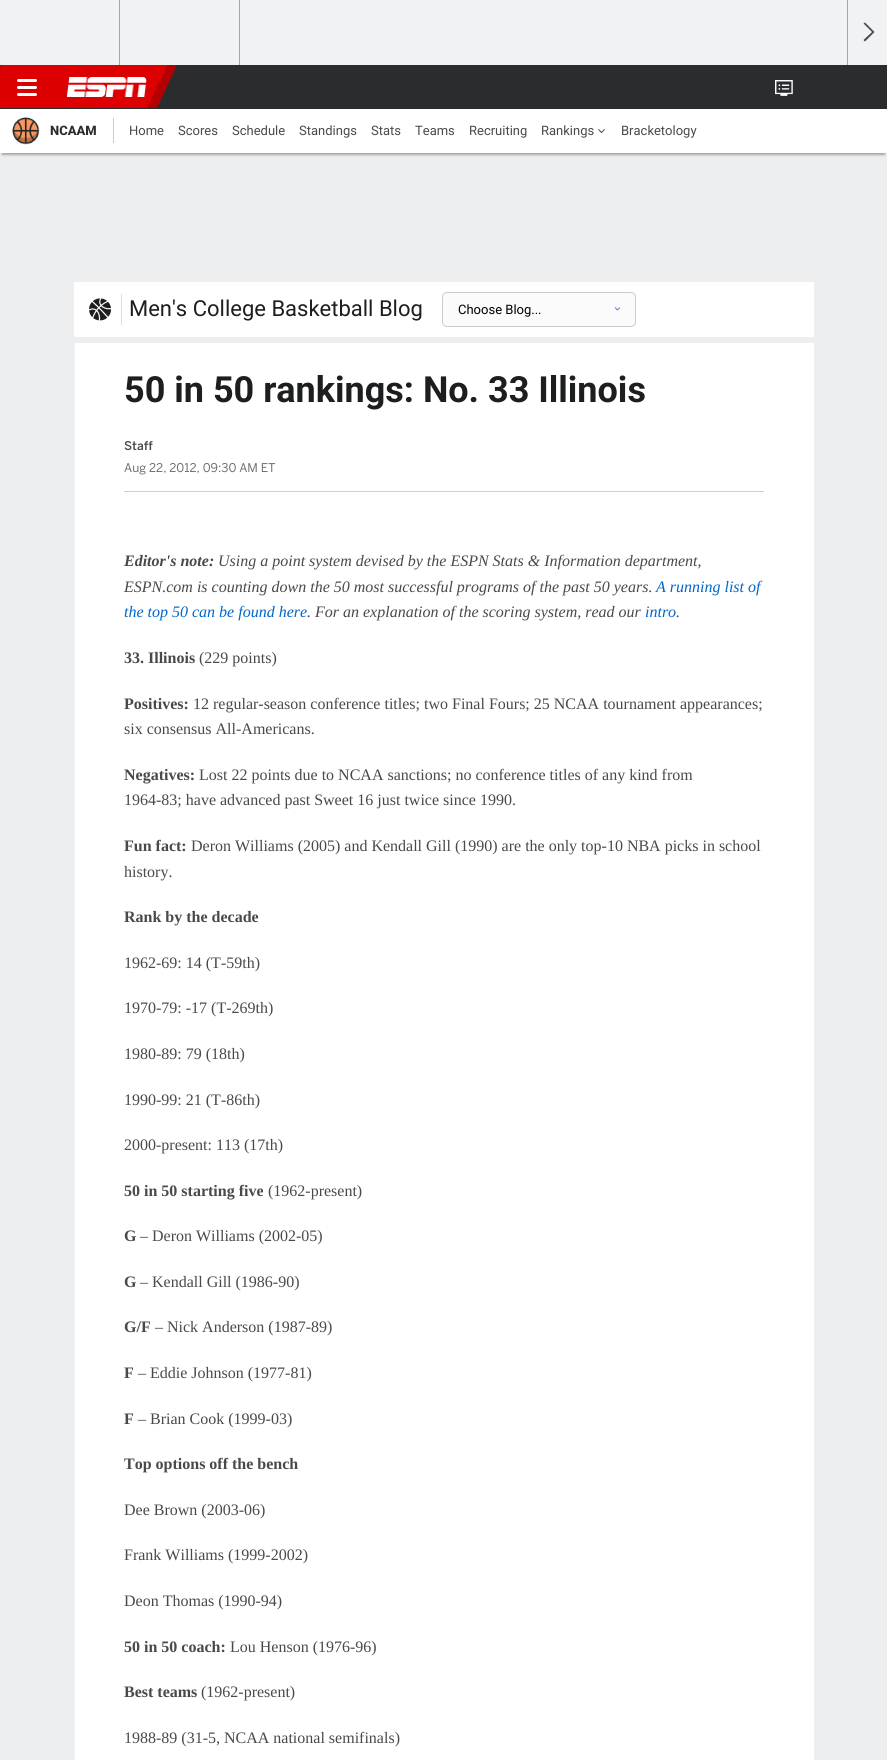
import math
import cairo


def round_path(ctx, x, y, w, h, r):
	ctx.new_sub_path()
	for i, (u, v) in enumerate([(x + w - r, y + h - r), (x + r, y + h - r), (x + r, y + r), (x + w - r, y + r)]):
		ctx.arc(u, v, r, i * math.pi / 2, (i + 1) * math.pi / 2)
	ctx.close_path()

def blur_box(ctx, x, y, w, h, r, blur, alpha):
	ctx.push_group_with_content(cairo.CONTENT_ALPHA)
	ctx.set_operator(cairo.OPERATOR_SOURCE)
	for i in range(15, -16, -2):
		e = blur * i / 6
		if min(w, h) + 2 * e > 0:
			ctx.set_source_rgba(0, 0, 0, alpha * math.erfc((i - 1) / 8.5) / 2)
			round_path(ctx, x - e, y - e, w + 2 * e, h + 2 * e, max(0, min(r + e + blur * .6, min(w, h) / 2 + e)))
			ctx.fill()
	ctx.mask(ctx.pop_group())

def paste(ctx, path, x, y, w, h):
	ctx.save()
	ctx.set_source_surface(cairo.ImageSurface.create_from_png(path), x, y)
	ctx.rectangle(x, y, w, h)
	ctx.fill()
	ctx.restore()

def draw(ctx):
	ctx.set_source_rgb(0.929, 0.933, 0.941)
	ctx.paint()
	ctx.set_source_rgb(0.945, 0.949, 0.953)
	ctx.rectangle(0, 0, 887, 65)
	ctx.fill()
	ctx.set_source_rgb(0.647, 0.651, 0.655)
	ctx.rectangle(119, 0, 1, 65)
	ctx.rectangle(239, 0, 1, 65)
	ctx.rectangle(847, 0, 1, 65)
	ctx.fill()
	ctx.set_source_rgb(0.282, 0.286, 0.29)
	ctx.new_path()
	ctx.move_to(865, 22.5)
	ctx.line_to(863.5, 23.5)
	ctx.line_to(872, 32)
	ctx.line_to(863.5, 40)
	ctx.line_to(865, 41.5)
	ctx.line_to(874.5, 32)
	ctx.close_path()
	ctx.fill()
	ctx.set_source_rgb(0.169, 0.173, 0.176)
	ctx.rectangle(0, 65, 887, 44)
	ctx.fill()
	ctx.set_source_rgb(0.706, 0, 0)
	ctx.new_path()
	ctx.move_to(54, 65)
	ctx.line_to(177, 65)
	ctx.line_to(157, 108)
	ctx.line_to(34, 108)
	ctx.close_path()
	ctx.fill()
	ctx.set_source_rgb(0.867, 0, 0)
	ctx.new_path()
	ctx.move_to(1, 65)
	ctx.line_to(167, 65)
	ctx.line_to(147, 108)
	ctx.line_to(-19, 108)
	ctx.close_path()
	ctx.fill()
	paste(ctx, 'media/1.png', 67, 77, 80, 20)
	ctx.set_source_rgb(1, 1, 1)
	round_path(ctx, 17, 86, 20, 3, 1.5)
	ctx.fill()
	round_path(ctx, 17, 79, 20, 3, 1.5)
	ctx.fill()
	round_path(ctx, 17, 93, 20, 3, 1.5)
	ctx.fill()
	paste(ctx, 'media/2.png', 775, 80, 18, 16)
	ctx.set_source_rgb(0, 0, 0)
	blur_box(ctx, 2, 115, 883, 40, 0, 1, 0.3)
	ctx.set_source_rgb(1, 1, 1)
	round_path(ctx, 0, 109, 887, 44, 1)
	ctx.fill()
	paste(ctx, 'media/3.png', 12, 117, 28, 28)
	ctx.select_font_face('Roboto ExtraBold')
	ctx.set_font_size(13)
	ctx.set_source_rgb(0.169, 0.173, 0.176)
	ctx.move_to(50, 135)
	ctx.show_text('NCAAM')
	ctx.set_source_rgb(0.796, 0.8, 0.808)
	ctx.rectangle(113, 118, 1, 25)
	ctx.fill()
	ctx.select_font_face('Roboto')
	ctx.set_source_rgb(0.282, 0.286, 0.29)
	for x, y, s in [
		(129, 135, 'Home'),
		(178, 135, 'Scores'),
		(232, 135, 'Schedule'),
		(299, 135, 'Standings'),
		(371, 135, 'Stats'),
		(415, 135, 'Teams'),
		(469, 135, 'Recruiting'),
		(541, 135, 'Rankings'),
	]:
		ctx.move_to(x, y)
		ctx.show_text(s)
	paste(ctx, 'media/4.png', 598, 129, 7, 5)
	ctx.move_to(621, 135)
	ctx.show_text('Bracketology')
	ctx.set_source_rgb(1, 1, 1)
	ctx.rectangle(74, 282, 740, 55)
	ctx.fill()
	ctx.set_source_rgb(0.863, 0.867, 0.875)
	ctx.rectangle(121, 294, 1, 31)
	ctx.fill()
	paste(ctx, 'media/5.png', 89, 298, 23, 23)
	ctx.set_font_size(22)
	ctx.set_source_rgb(0.114, 0.118, 0.122)
	ctx.move_to(129, 316)
	ctx.show_text('Men\'s College Basketball Blog')
	ctx.set_source_rgb(0.984, 0.984, 0.984)
	round_path(ctx, 442.5, 292.5, 193, 34, 4.5)
	ctx.fill_preserve()
	ctx.set_source_rgb(0.796, 0.8, 0.808)
	ctx.set_line_width(1)
	ctx.stroke()
	ctx.set_font_size(13)
	ctx.set_source_rgb(0, 0, 0)
	ctx.move_to(458, 314)
	ctx.show_text('Choose Blog...')
	paste(ctx, 'media/6.png', 614, 307, 6, 4)
	ctx.set_source_rgb(0.945, 0.949, 0.953)
	ctx.rectangle(74, 343, 1, 1417)
	ctx.fill()
	ctx.set_source_rgb(1, 1, 1)
	ctx.rectangle(75, 343, 739, 1417)
	ctx.fill()
	ctx.select_font_face('Roboto', cairo.FONT_SLANT_NORMAL, cairo.FONT_WEIGHT_BOLD)
	ctx.set_font_size(36)
	ctx.set_source_rgb(0.114, 0.118, 0.122)
	ctx.move_to(124, 402)
	ctx.show_text('50 in 50 rankings: No. 33 Illinois')
	ctx.set_source_rgb(0.808, 0.812, 0.812)
	ctx.rectangle(124, 491, 640, 1)
	ctx.fill()
	ctx.select_font_face('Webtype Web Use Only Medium')
	ctx.set_font_size(12)
	ctx.set_source_rgb(0.282, 0.286, 0.29)
	ctx.move_to(124, 450)
	ctx.show_text('Staff')
	ctx.select_font_face('Webtype Web Use Only')
	ctx.set_source_rgb(0.424, 0.427, 0.435)
	ctx.move_to(124, 472)
	ctx.show_text('Aug 22, 2012, 09:30 AM ET')
	ctx.select_font_face('Liberation Serif', cairo.FONT_SLANT_ITALIC, cairo.FONT_WEIGHT_BOLD)
	ctx.set_font_size(16)
	ctx.set_source_rgb(0.282, 0.286, 0.29)
	ctx.move_to(124, 566)
	ctx.show_text('Editor\'s note:')
	ctx.select_font_face('Liberation Serif', cairo.FONT_SLANT_ITALIC)
	ctx.move_to(218, 566)
	ctx.show_text('Using a point system devised by the ESPN Stats & Information department,')
	ctx.move_to(124, 592)
	ctx.show_text('ESPN.com is counting down the 50 most successful programs of the past 50 years.')
	ctx.set_source_rgb(0, 0.4, 0.8)
	ctx.move_to(656, 592)
	ctx.show_text('A running list of')
	ctx.move_to(124, 617)
	ctx.show_text('the top 50 can be found here')
	ctx.set_source_rgb(0.282, 0.286, 0.29)
	ctx.move_to(307, 617)
	ctx.show_text('. For an explanation of the scoring system, read our')
	ctx.set_source_rgb(0, 0.4, 0.8)
	ctx.move_to(645, 617)
	ctx.show_text('intro')
	ctx.set_source_rgb(0.282, 0.286, 0.29)
	ctx.move_to(676, 617)
	ctx.show_text('.')
	ctx.select_font_face('Liberation Serif', cairo.FONT_SLANT_NORMAL, cairo.FONT_WEIGHT_BOLD)
	ctx.move_to(124, 663)
	ctx.show_text('33. Illinois')
	ctx.select_font_face('Liberation Serif')
	ctx.move_to(199, 663)
	ctx.show_text('(229 points)')
	ctx.select_font_face('Liberation Serif', cairo.FONT_SLANT_NORMAL, cairo.FONT_WEIGHT_BOLD)
	ctx.move_to(124, 709)
	ctx.show_text('Positives:')
	ctx.select_font_face('Liberation Serif')
	ctx.move_to(193, 709)
	ctx.show_text('12 regular-season conference titles; two Final Fours; 25 NCAA tournament appearances;')
	ctx.move_to(124, 734)
	ctx.show_text('six consensus All-Americans.')
	ctx.select_font_face('Liberation Serif', cairo.FONT_SLANT_NORMAL, cairo.FONT_WEIGHT_BOLD)
	ctx.move_to(124, 780)
	ctx.show_text('Negatives:')
	ctx.select_font_face('Liberation Serif')
	ctx.move_to(199, 780)
	ctx.show_text('Lost 22 points due to NCAA sanctions; no conference titles of any kind from')
	ctx.move_to(124, 805)
	ctx.show_text('1964-83; have advanced past Sweet 16 just twice since 1990.')
	ctx.select_font_face('Liberation Serif', cairo.FONT_SLANT_NORMAL, cairo.FONT_WEIGHT_BOLD)
	ctx.move_to(124, 851)
	ctx.show_text('Fun fact:')
	ctx.select_font_face('Liberation Serif')
	ctx.move_to(191, 851)
	ctx.show_text('Deron Williams (2005) and Kendall Gill (1990) are the only top-10 NBA picks in school')
	ctx.move_to(124, 877)
	ctx.show_text('history.')
	ctx.select_font_face('Liberation Serif', cairo.FONT_SLANT_NORMAL, cairo.FONT_WEIGHT_BOLD)
	ctx.move_to(124, 922)
	ctx.show_text('Rank by the decade')
	ctx.select_font_face('Liberation Serif')
	for x, y, s in [
		(124, 968, '1962-69: 14 (T-59th)'),
		(124, 1013, '1970-79: -17 (T-269th)'),
		(124, 1059, '1980-89: 79 (18th)'),
		(124, 1105, '1990-99: 21 (T-86th)'),
		(124, 1150, '2000-present: 113 (17th)'),
	]:
		ctx.move_to(x, y)
		ctx.show_text(s)
	ctx.select_font_face('Liberation Serif', cairo.FONT_SLANT_NORMAL, cairo.FONT_WEIGHT_BOLD)
	ctx.move_to(124, 1196)
	ctx.show_text('50 in 50 starting five')
	ctx.select_font_face('Liberation Serif')
	ctx.move_to(268, 1196)
	ctx.show_text('(1962-present)')
	ctx.select_font_face('Liberation Serif', cairo.FONT_SLANT_NORMAL, cairo.FONT_WEIGHT_BOLD)
	ctx.move_to(124, 1241)
	ctx.show_text('G')
	ctx.select_font_face('Liberation Serif')
	ctx.move_to(140, 1241)
	ctx.show_text('– Deron Williams (2002-05)')
	ctx.select_font_face('Liberation Serif', cairo.FONT_SLANT_NORMAL, cairo.FONT_WEIGHT_BOLD)
	ctx.move_to(124, 1287)
	ctx.show_text('G')
	ctx.select_font_face('Liberation Serif')
	ctx.move_to(140, 1287)
	ctx.show_text('– Kendall Gill (1986-90)')
	ctx.select_font_face('Liberation Serif', cairo.FONT_SLANT_NORMAL, cairo.FONT_WEIGHT_BOLD)
	ctx.move_to(124, 1332)
	ctx.show_text('G/F')
	ctx.select_font_face('Liberation Serif')
	ctx.move_to(155, 1332)
	ctx.show_text('– Nick Anderson (1987-89)')
	ctx.select_font_face('Liberation Serif', cairo.FONT_SLANT_NORMAL, cairo.FONT_WEIGHT_BOLD)
	ctx.move_to(124, 1378)
	ctx.show_text('F')
	ctx.select_font_face('Liberation Serif')
	ctx.move_to(138, 1378)
	ctx.show_text('– Eddie Johnson (1977-81)')
	ctx.select_font_face('Liberation Serif', cairo.FONT_SLANT_NORMAL, cairo.FONT_WEIGHT_BOLD)
	ctx.move_to(124, 1424)
	ctx.show_text('F')
	ctx.select_font_face('Liberation Serif')
	ctx.move_to(138, 1424)
	ctx.show_text('– Brian Cook (1999-03)')
	ctx.select_font_face('Liberation Serif', cairo.FONT_SLANT_NORMAL, cairo.FONT_WEIGHT_BOLD)
	ctx.move_to(124, 1469)
	ctx.show_text('Top options off the bench')
	ctx.select_font_face('Liberation Serif')
	for x, y, s in [
		(124, 1515, 'Dee Brown (2003-06)'),
		(124, 1560, 'Frank Williams (1999-2002)'),
		(124, 1606, 'Deon Thomas (1990-94)'),
	]:
		ctx.move_to(x, y)
		ctx.show_text(s)
	ctx.select_font_face('Liberation Serif', cairo.FONT_SLANT_NORMAL, cairo.FONT_WEIGHT_BOLD)
	ctx.move_to(124, 1652)
	ctx.show_text('50 in 50 coach:')
	ctx.select_font_face('Liberation Serif')
	ctx.move_to(230, 1652)
	ctx.show_text('Lou Henson (1976-96)')
	ctx.select_font_face('Liberation Serif', cairo.FONT_SLANT_NORMAL, cairo.FONT_WEIGHT_BOLD)
	ctx.move_to(124, 1697)
	ctx.show_text('Best teams')
	ctx.select_font_face('Liberation Serif')
	ctx.move_to(201, 1697)
	ctx.show_text('(1962-present)')
	ctx.move_to(124, 1743)
	ctx.show_text('1988-89 (31-5, NCAA national semifinals)')


surface = cairo.ImageSurface(cairo.FORMAT_RGB24, 887, 1760)
ctx = cairo.Context(surface)
options = cairo.FontOptions()
options.set_hint_metrics(cairo.HINT_METRICS_OFF)
options.set_hint_style(cairo.HINT_STYLE_NONE)
ctx.set_font_options(options)
ctx.set_miter_limit(4)
draw(ctx)
surface.write_to_png('image.png')
